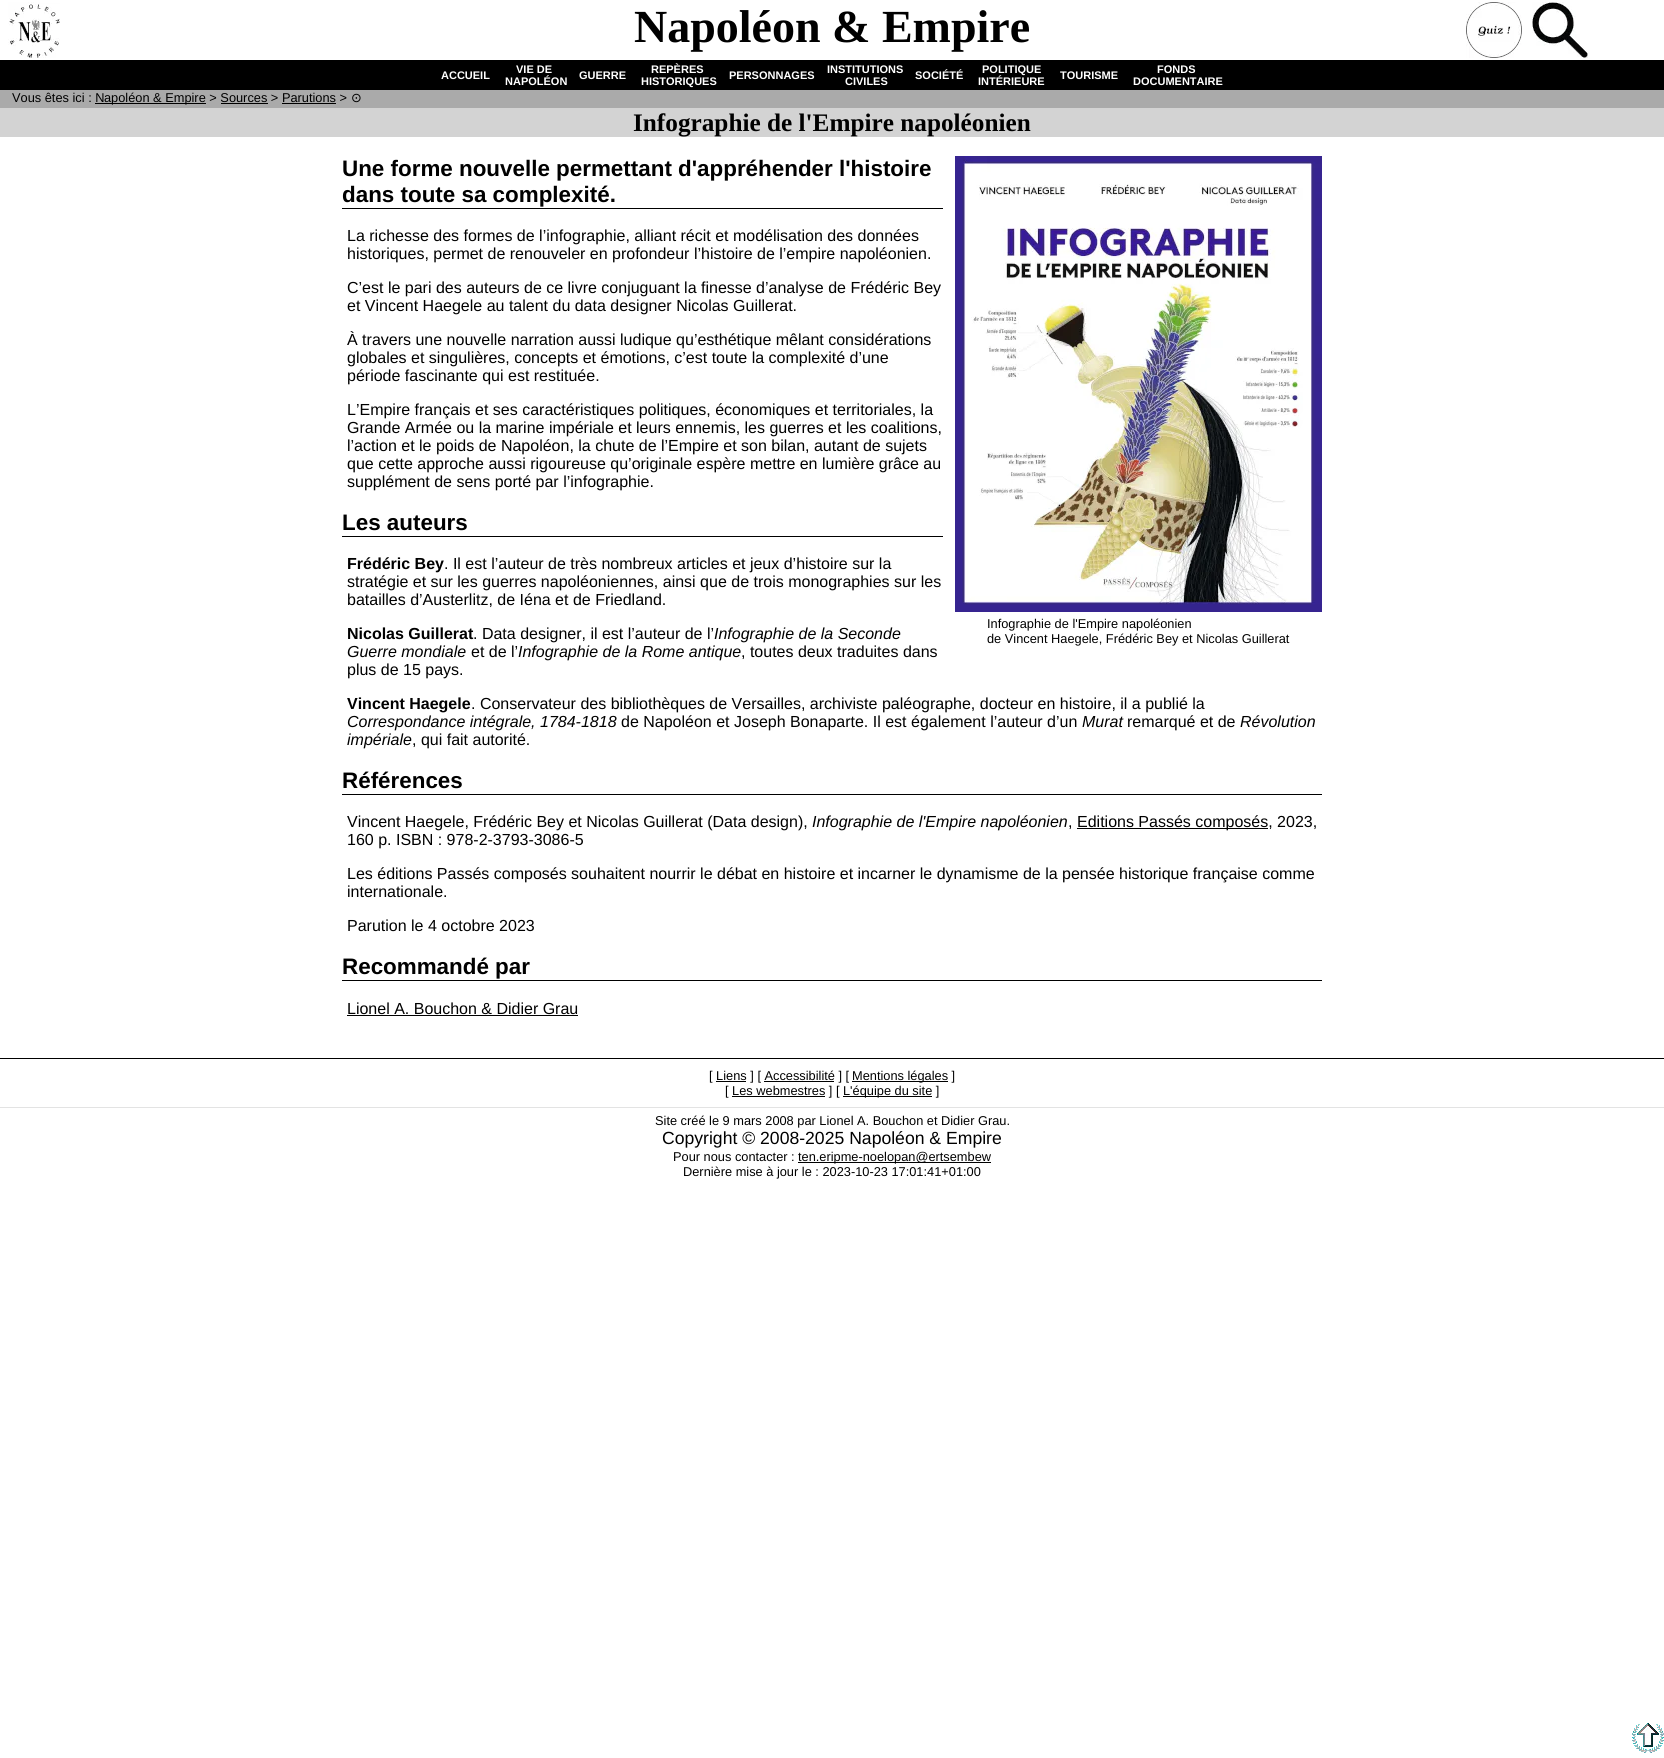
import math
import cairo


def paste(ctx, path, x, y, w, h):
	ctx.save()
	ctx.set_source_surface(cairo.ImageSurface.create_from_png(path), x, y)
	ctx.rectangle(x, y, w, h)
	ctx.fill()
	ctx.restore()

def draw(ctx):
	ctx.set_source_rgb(1, 1, 1)
	ctx.paint()
	ctx.select_font_face('Liberation Serif', cairo.FONT_SLANT_NORMAL, cairo.FONT_WEIGHT_BOLD)
	ctx.set_font_size(46)
	ctx.set_source_rgb(0, 0, 0)
	ctx.move_to(634, 42)
	ctx.show_text('Napoléon & Empire')
	ctx.rectangle(0, 60, 1664, 30)
	ctx.fill()
	ctx.select_font_face('Liberation Sans', cairo.FONT_SLANT_NORMAL, cairo.FONT_WEIGHT_BOLD)
	ctx.set_font_size(11)
	ctx.set_source_rgb(1, 1, 1)
	for x, y, s in [
		(441, 79, 'ACCUEIL'),
		(516, 73, 'VIE DE'),
		(505, 85, 'NAPOLÉON'),
		(579, 79, 'GUERRE'),
		(651, 73, 'REPÈRES'),
		(641, 85, 'HISTORIQUES'),
		(729, 79, 'PERSONNAGES'),
		(827, 73, 'INSTITUTIONS'),
		(845, 85, 'CIVILES'),
		(915, 79, 'SOCIÉTÉ'),
		(982, 73, 'POLITIQUE'),
		(978, 85, 'INTÉRIEURE'),
		(1060, 79, 'TOURISME'),
		(1157, 73, 'FONDS'),
		(1133, 85, 'DOCUMENTAIRE'),
	]:
		ctx.move_to(x, y)
		ctx.show_text(s)
	paste(ctx, 'media/1.png', 8, 2, 52, 56)
	paste(ctx, 'media/2.png', 1466, 2, 56, 56)
	paste(ctx, 'media/3.png', 1532, 2, 56, 56)
	ctx.set_source_rgb(0.667, 0.667, 0.667)
	ctx.rectangle(0, 90, 1664, 18)
	ctx.fill()
	ctx.select_font_face('Liberation Sans')
	ctx.set_font_size(12.8)
	ctx.set_source_rgb(0, 0, 0)
	ctx.move_to(12, 102)
	ctx.show_text('Vous êtes ici : N')
	ctx.rectangle(95, 103, 111, 1)
	ctx.fill()
	ctx.move_to(104, 102)
	ctx.show_text('apoléon & Empire > Sources > Parutions >')
	ctx.select_font_face('DejaVu Sans')
	ctx.move_to(351, 102)
	ctx.show_text('⊙')
	ctx.rectangle(221, 103, 47, 1)
	ctx.fill()
	ctx.rectangle(282, 103, 54, 1)
	ctx.fill()
	paste(ctx, 'media/4.png', 1632, 1723, 32, 30)
	ctx.set_source_rgb(0.827, 0.827, 0.827)
	ctx.rectangle(0, 108, 1664, 29)
	ctx.fill()
	ctx.select_font_face('Liberation Serif', cairo.FONT_SLANT_NORMAL, cairo.FONT_WEIGHT_BOLD)
	ctx.set_font_size(25.25)
	ctx.set_source_rgb(0, 0, 0)
	ctx.move_to(633, 131)
	ctx.show_text('Infographie de l\'Empire napoléonien')
	ctx.rectangle(342, 208, 601, 1)
	ctx.fill()
	ctx.select_font_face('Liberation Sans', cairo.FONT_SLANT_NORMAL, cairo.FONT_WEIGHT_BOLD)
	ctx.set_font_size(22.4)
	ctx.move_to(342, 176)
	ctx.show_text('Une forme nouvelle permettant d\'appréhender l\'histoire')
	ctx.move_to(342, 202)
	ctx.show_text('dans toute sa complexité.')
	ctx.select_font_face('Liberation Sans')
	ctx.set_font_size(16)
	for x, y, s in [
		(347, 241, 'La richesse des formes de l’infographie, alliant récit et modélisation des données'),
		(347, 259, 'historiques, permet de renouveler en profondeur l’histoire de l’empire napoléonien.'),
		(347, 293, 'C’est le pari des auteurs de ce livre conjuguant la finesse d’analyse de Frédéric Bey'),
		(347, 311, 'et Vincent Haegele au talent du data designer Nicolas Guillerat.'),
		(347, 345, 'À travers une nouvelle narration aussi ludique qu’esthétique mêlant considérations'),
		(347, 363, 'globales et singulières, concepts et émotions, c’est toute la complexité d’une'),
		(347, 381, 'période fascinante qui est restituée.'),
		(347, 415, 'L’Empire français et ses caractéristiques politiques, économiques et territoriales, la'),
		(347, 433, 'Grande Armée ou la marine impériale et leurs ennemis, les guerres et les coalitions,'),
		(347, 451, 'l’action et le poids de Napoléon, la chute de l’Empire et son bilan, autant de sujets'),
		(347, 469, 'que cette approche aussi rigoureuse qu’originale espère mettre en lumière grâce au'),
		(347, 487, 'supplément de sens porté par l’infographie.'),
	]:
		ctx.move_to(x, y)
		ctx.show_text(s)
	ctx.rectangle(342, 536, 601, 1)
	ctx.fill()
	ctx.select_font_face('Liberation Sans', cairo.FONT_SLANT_NORMAL, cairo.FONT_WEIGHT_BOLD)
	ctx.set_font_size(22.4)
	ctx.move_to(342, 530)
	ctx.show_text('Les auteurs')
	ctx.set_font_size(16)
	ctx.move_to(347, 569)
	ctx.show_text('Frédéric Bey')
	ctx.select_font_face('Liberation Sans')
	for x, y, s in [
		(444, 569, '. Il est l’auteur de très nombreux articles et jeux d’histoire sur la'),
		(347, 587, 'stratégie et sur les guerres napoléoniennes, ainsi que de trois monographies sur les'),
		(347, 605, 'batailles d’Austerlitz, de Iéna et de Friedland.'),
	]:
		ctx.move_to(x, y)
		ctx.show_text(s)
	ctx.select_font_face('Liberation Sans', cairo.FONT_SLANT_NORMAL, cairo.FONT_WEIGHT_BOLD)
	ctx.move_to(347, 639)
	ctx.show_text('Nicolas Guillerat')
	ctx.select_font_face('Liberation Sans')
	ctx.move_to(473, 639)
	ctx.show_text('. Data designer, il est l’auteur de l’')
	ctx.select_font_face('Liberation Sans', cairo.FONT_SLANT_ITALIC)
	ctx.move_to(714, 639)
	ctx.show_text('Infographie de la Seconde')
	ctx.move_to(347, 657)
	ctx.show_text('Guerre mondiale')
	ctx.select_font_face('Liberation Sans')
	ctx.move_to(471, 657)
	ctx.show_text('et de l’')
	ctx.select_font_face('Liberation Sans', cairo.FONT_SLANT_ITALIC)
	ctx.move_to(518, 657)
	ctx.show_text('Infographie de la Rome antique')
	ctx.select_font_face('Liberation Sans')
	ctx.move_to(741, 657)
	ctx.show_text(', toutes deux traduites dans')
	ctx.move_to(347, 675)
	ctx.show_text('plus de 15 pays.')
	paste(ctx, 'media/5.png', 955, 156, 367, 456)
	ctx.set_font_size(12.8)
	ctx.move_to(987, 628)
	ctx.show_text('Infographie de l\'Empire napoléonien')
	ctx.move_to(987, 643)
	ctx.show_text('de Vincent Haegele, Frédéric Bey et Nicolas Guillerat')
	ctx.select_font_face('Liberation Sans', cairo.FONT_SLANT_NORMAL, cairo.FONT_WEIGHT_BOLD)
	ctx.set_font_size(16)
	ctx.move_to(347, 709)
	ctx.show_text('Vincent Haegele')
	ctx.select_font_face('Liberation Sans')
	ctx.move_to(471, 709)
	ctx.show_text('. Conservateur des bibliothèques de Versailles, archiviste paléographe, docteur en histoire, il a publié la')
	ctx.select_font_face('Liberation Sans', cairo.FONT_SLANT_ITALIC)
	ctx.move_to(347, 727)
	ctx.show_text('Correspondance intégrale, 1784-1818')
	ctx.select_font_face('Liberation Sans')
	ctx.move_to(621, 727)
	ctx.show_text('de Napoléon et Joseph Bonaparte. Il est également l’auteur d’un')
	ctx.select_font_face('Liberation Sans', cairo.FONT_SLANT_ITALIC)
	ctx.move_to(1082, 727)
	ctx.show_text('Murat')
	ctx.select_font_face('Liberation Sans')
	ctx.move_to(1127, 727)
	ctx.show_text('remarqué et de')
	ctx.select_font_face('Liberation Sans', cairo.FONT_SLANT_ITALIC)
	ctx.move_to(1240, 727)
	ctx.show_text('Révolution')
	ctx.move_to(347, 745)
	ctx.show_text('impériale')
	ctx.select_font_face('Liberation Sans')
	ctx.move_to(412, 745)
	ctx.show_text(', qui fait autorité.')
	ctx.rectangle(342, 794, 980, 1)
	ctx.fill()
	ctx.select_font_face('Liberation Sans', cairo.FONT_SLANT_NORMAL, cairo.FONT_WEIGHT_BOLD)
	ctx.set_font_size(22.4)
	ctx.move_to(342, 788)
	ctx.show_text('Références')
	ctx.select_font_face('Liberation Sans')
	ctx.set_font_size(16)
	ctx.move_to(347, 827)
	ctx.show_text('Vincent Haegele, Frédéric Bey et Nicolas Guillerat (Data design),')
	ctx.select_font_face('Liberation Sans', cairo.FONT_SLANT_ITALIC)
	ctx.move_to(812, 827)
	ctx.show_text('Infographie de l\'Empire napoléonien')
	ctx.select_font_face('Liberation Sans')
	ctx.move_to(1068, 827)
	ctx.show_text(',')
	ctx.rectangle(1077, 828, 191, 1)
	ctx.fill()
	for x, y, s in [
		(1077, 827, 'Editions Passés composés, 2023,'),
		(347, 845, '160 p. ISBN : 978-2-3793-3086-5'),
		(347, 879, 'Les éditions Passés composés souhaitent nourrir le débat en histoire et incarner le dynamisme de la pensée historique française comme'),
		(347, 897, 'internationale.'),
		(347, 931, 'Parution le 4 octobre 2023'),
	]:
		ctx.move_to(x, y)
		ctx.show_text(s)
	ctx.rectangle(342, 980, 980, 1)
	ctx.fill()
	ctx.select_font_face('Liberation Sans', cairo.FONT_SLANT_NORMAL, cairo.FONT_WEIGHT_BOLD)
	ctx.set_font_size(22.4)
	ctx.move_to(342, 974)
	ctx.show_text('Recommandé par')
	ctx.select_font_face('Liberation Sans')
	ctx.set_font_size(16)
	ctx.move_to(347, 1014)
	ctx.show_text('Lionel A. Bouchon & Didier Grau')
	ctx.rectangle(347, 1015, 231, 1)
	ctx.rectangle(0, 1058, 1664, 1)
	ctx.fill()
	ctx.set_source_rgb(0.89, 0.89, 0.89)
	ctx.rectangle(0, 1107, 1664, 1)
	ctx.fill()
	ctx.set_font_size(12.8)
	ctx.set_source_rgb(0, 0, 0)
	ctx.move_to(709, 1080)
	ctx.show_text('[ Liens ] [ Accessibilité ] [')
	ctx.rectangle(852, 1081, 96, 1)
	ctx.fill()
	ctx.move_to(852, 1080)
	ctx.show_text('Mentions légales ]')
	ctx.rectangle(716, 1081, 30, 1)
	ctx.fill()
	ctx.rectangle(764, 1081, 70, 1)
	ctx.fill()
	ctx.move_to(725, 1095)
	ctx.show_text('[ Les webmestres ] [')
	ctx.rectangle(843, 1096, 89, 1)
	ctx.fill()
	ctx.move_to(843, 1095)
	ctx.show_text('L\'équipe du site ]')
	ctx.rectangle(732, 1096, 93, 1)
	ctx.fill()
	ctx.move_to(655, 1125)
	ctx.show_text('Site créé le 9 mars 2008 par Lionel A. Bouchon et Didier Grau.')
	ctx.set_font_size(17.6)
	ctx.move_to(662, 1144)
	ctx.show_text('Copyright © 2008-2025 Napoléon & Empire')
	ctx.set_font_size(12.8)
	ctx.move_to(673, 1161)
	ctx.show_text('Pour nous contacter :')
	ctx.rectangle(798, 1162, 193, 1)
	ctx.fill()
	ctx.move_to(798, 1161)
	ctx.show_text('ten.eripme-noelopan@ertsembew')
	ctx.move_to(683, 1176)
	ctx.show_text('Dernière mise à jour le : 2023-10-23 17:01:41+01:00')


surface = cairo.ImageSurface(cairo.FORMAT_RGB24, 1664, 1758)
ctx = cairo.Context(surface)
options = cairo.FontOptions()
options.set_hint_metrics(cairo.HINT_METRICS_OFF)
options.set_hint_style(cairo.HINT_STYLE_NONE)
ctx.set_font_options(options)
ctx.set_miter_limit(4)
draw(ctx)
surface.write_to_png('image.png')
